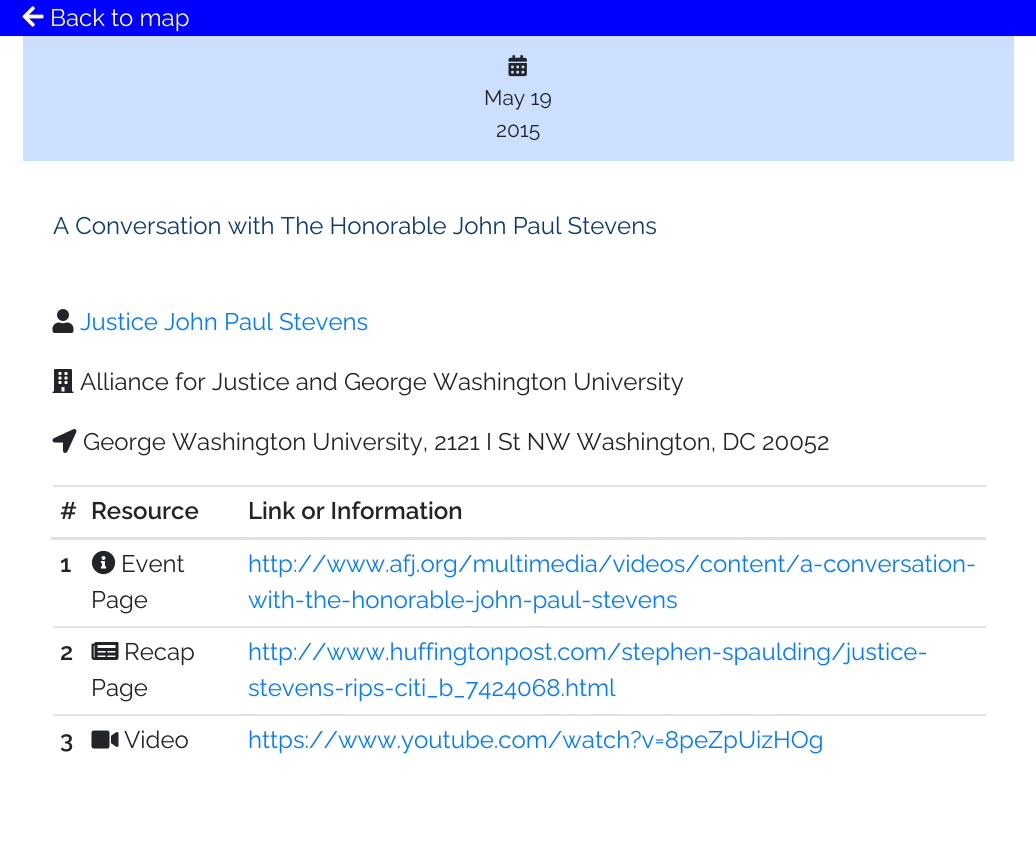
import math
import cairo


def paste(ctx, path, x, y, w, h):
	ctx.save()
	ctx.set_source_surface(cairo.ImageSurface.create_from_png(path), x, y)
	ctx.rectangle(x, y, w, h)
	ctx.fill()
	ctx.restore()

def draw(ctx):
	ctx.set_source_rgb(1, 1, 1)
	ctx.paint()
	ctx.set_source_rgb(0, 0, 1)
	ctx.rectangle(0, 0, 1036, 36)
	ctx.fill()
	paste(ctx, 'media/1.png', 22, 6, 22, 21)
	ctx.select_font_face('Raleway')
	ctx.set_font_size(24)
	ctx.set_source_rgb(1, 1, 1)
	ctx.move_to(50, 26)
	ctx.show_text('Back to map')
	ctx.set_source_rgb(0.8, 0.875, 1)
	ctx.rectangle(23, 36, 991, 125)
	ctx.fill()
	paste(ctx, 'media/2.png', 508, 55, 19, 22)
	ctx.set_font_size(21)
	ctx.set_source_rgb(0.129, 0.145, 0.161)
	ctx.move_to(484, 105)
	ctx.show_text('May 19')
	ctx.move_to(496, 137)
	ctx.show_text('2015')
	ctx.set_font_size(24)
	ctx.set_source_rgb(0.043, 0.227, 0.451)
	ctx.move_to(53, 234)
	ctx.show_text('A Conversation with The Honorable John Paul Stevens')
	paste(ctx, 'media/3.png', 52, 309, 22, 24)
	ctx.set_source_rgb(0, 0.482, 1)
	ctx.move_to(80, 330)
	ctx.show_text('Justice John Paul Stevens')
	paste(ctx, 'media/4.png', 52, 369, 22, 24)
	ctx.set_source_rgb(0.129, 0.145, 0.161)
	ctx.move_to(80, 390)
	ctx.show_text('Alliance for Justice and George Washington University')
	paste(ctx, 'media/5.png', 52, 429, 25, 24)
	ctx.move_to(83, 450)
	ctx.show_text('George Washington University, 2121 I St NW Washington, DC 20052')
	ctx.select_font_face('Raleway SemiBold')
	ctx.move_to(60, 519)
	ctx.show_text('#')
	ctx.move_to(91, 519)
	ctx.show_text('Resource')
	ctx.set_source_rgb(0.871, 0.886, 0.902)
	ctx.rectangle(53, 485, 933, 2)
	ctx.fill()
	ctx.rectangle(51, 537, 935, 3)
	ctx.fill()
	ctx.set_source_rgb(0.129, 0.145, 0.161)
	ctx.move_to(248, 519)
	ctx.show_text('Link or Information')
	ctx.move_to(60, 572)
	ctx.show_text('1')
	paste(ctx, 'media/6.png', 91, 550, 25, 25)
	ctx.select_font_face('Raleway')
	ctx.move_to(121, 572)
	ctx.show_text('Event')
	ctx.move_to(91, 608)
	ctx.show_text('Page')
	ctx.set_source_rgb(0, 0.482, 1)
	ctx.move_to(248, 572)
	ctx.show_text('http://www.afj.org/multimedia/videos/content/a-conversation-')
	ctx.move_to(248, 608)
	ctx.show_text('with-the-honorable-john-paul-stevens')
	ctx.select_font_face('Raleway SemiBold')
	ctx.set_source_rgb(0.129, 0.145, 0.161)
	ctx.move_to(60, 660)
	ctx.show_text('2')
	paste(ctx, 'media/7.png', 91, 642, 28, 18)
	ctx.select_font_face('Raleway')
	ctx.move_to(124, 660)
	ctx.show_text('Recap')
	ctx.move_to(91, 696)
	ctx.show_text('Page')
	ctx.set_source_rgb(0.871, 0.886, 0.902)
	ctx.rectangle(53, 626, 933, 2)
	ctx.fill()
	ctx.set_source_rgb(0, 0.482, 1)
	ctx.move_to(248, 660)
	ctx.show_text('http://www.huffingtonpost.com/stephen-spaulding/justice-')
	ctx.move_to(248, 696)
	ctx.show_text('stevens-rips-citi_b_7424068.html')
	ctx.select_font_face('Raleway SemiBold')
	ctx.set_source_rgb(0.129, 0.145, 0.161)
	ctx.move_to(60, 748)
	ctx.show_text('3')
	paste(ctx, 'media/8.png', 91, 730, 28, 19)
	ctx.select_font_face('Raleway')
	ctx.move_to(124, 748)
	ctx.show_text('Video')
	ctx.set_source_rgb(0.871, 0.886, 0.902)
	ctx.rectangle(53, 714, 933, 2)
	ctx.fill()
	ctx.set_source_rgb(0, 0.482, 1)
	ctx.move_to(248, 748)
	ctx.show_text('https://www.youtube.com/watch?v=8peZpUizHOg')


surface = cairo.ImageSurface(cairo.FORMAT_RGB24, 1036, 866)
ctx = cairo.Context(surface)
options = cairo.FontOptions()
options.set_hint_metrics(cairo.HINT_METRICS_OFF)
options.set_hint_style(cairo.HINT_STYLE_NONE)
ctx.set_font_options(options)
ctx.set_miter_limit(4)
draw(ctx)
surface.write_to_png('image.png')
